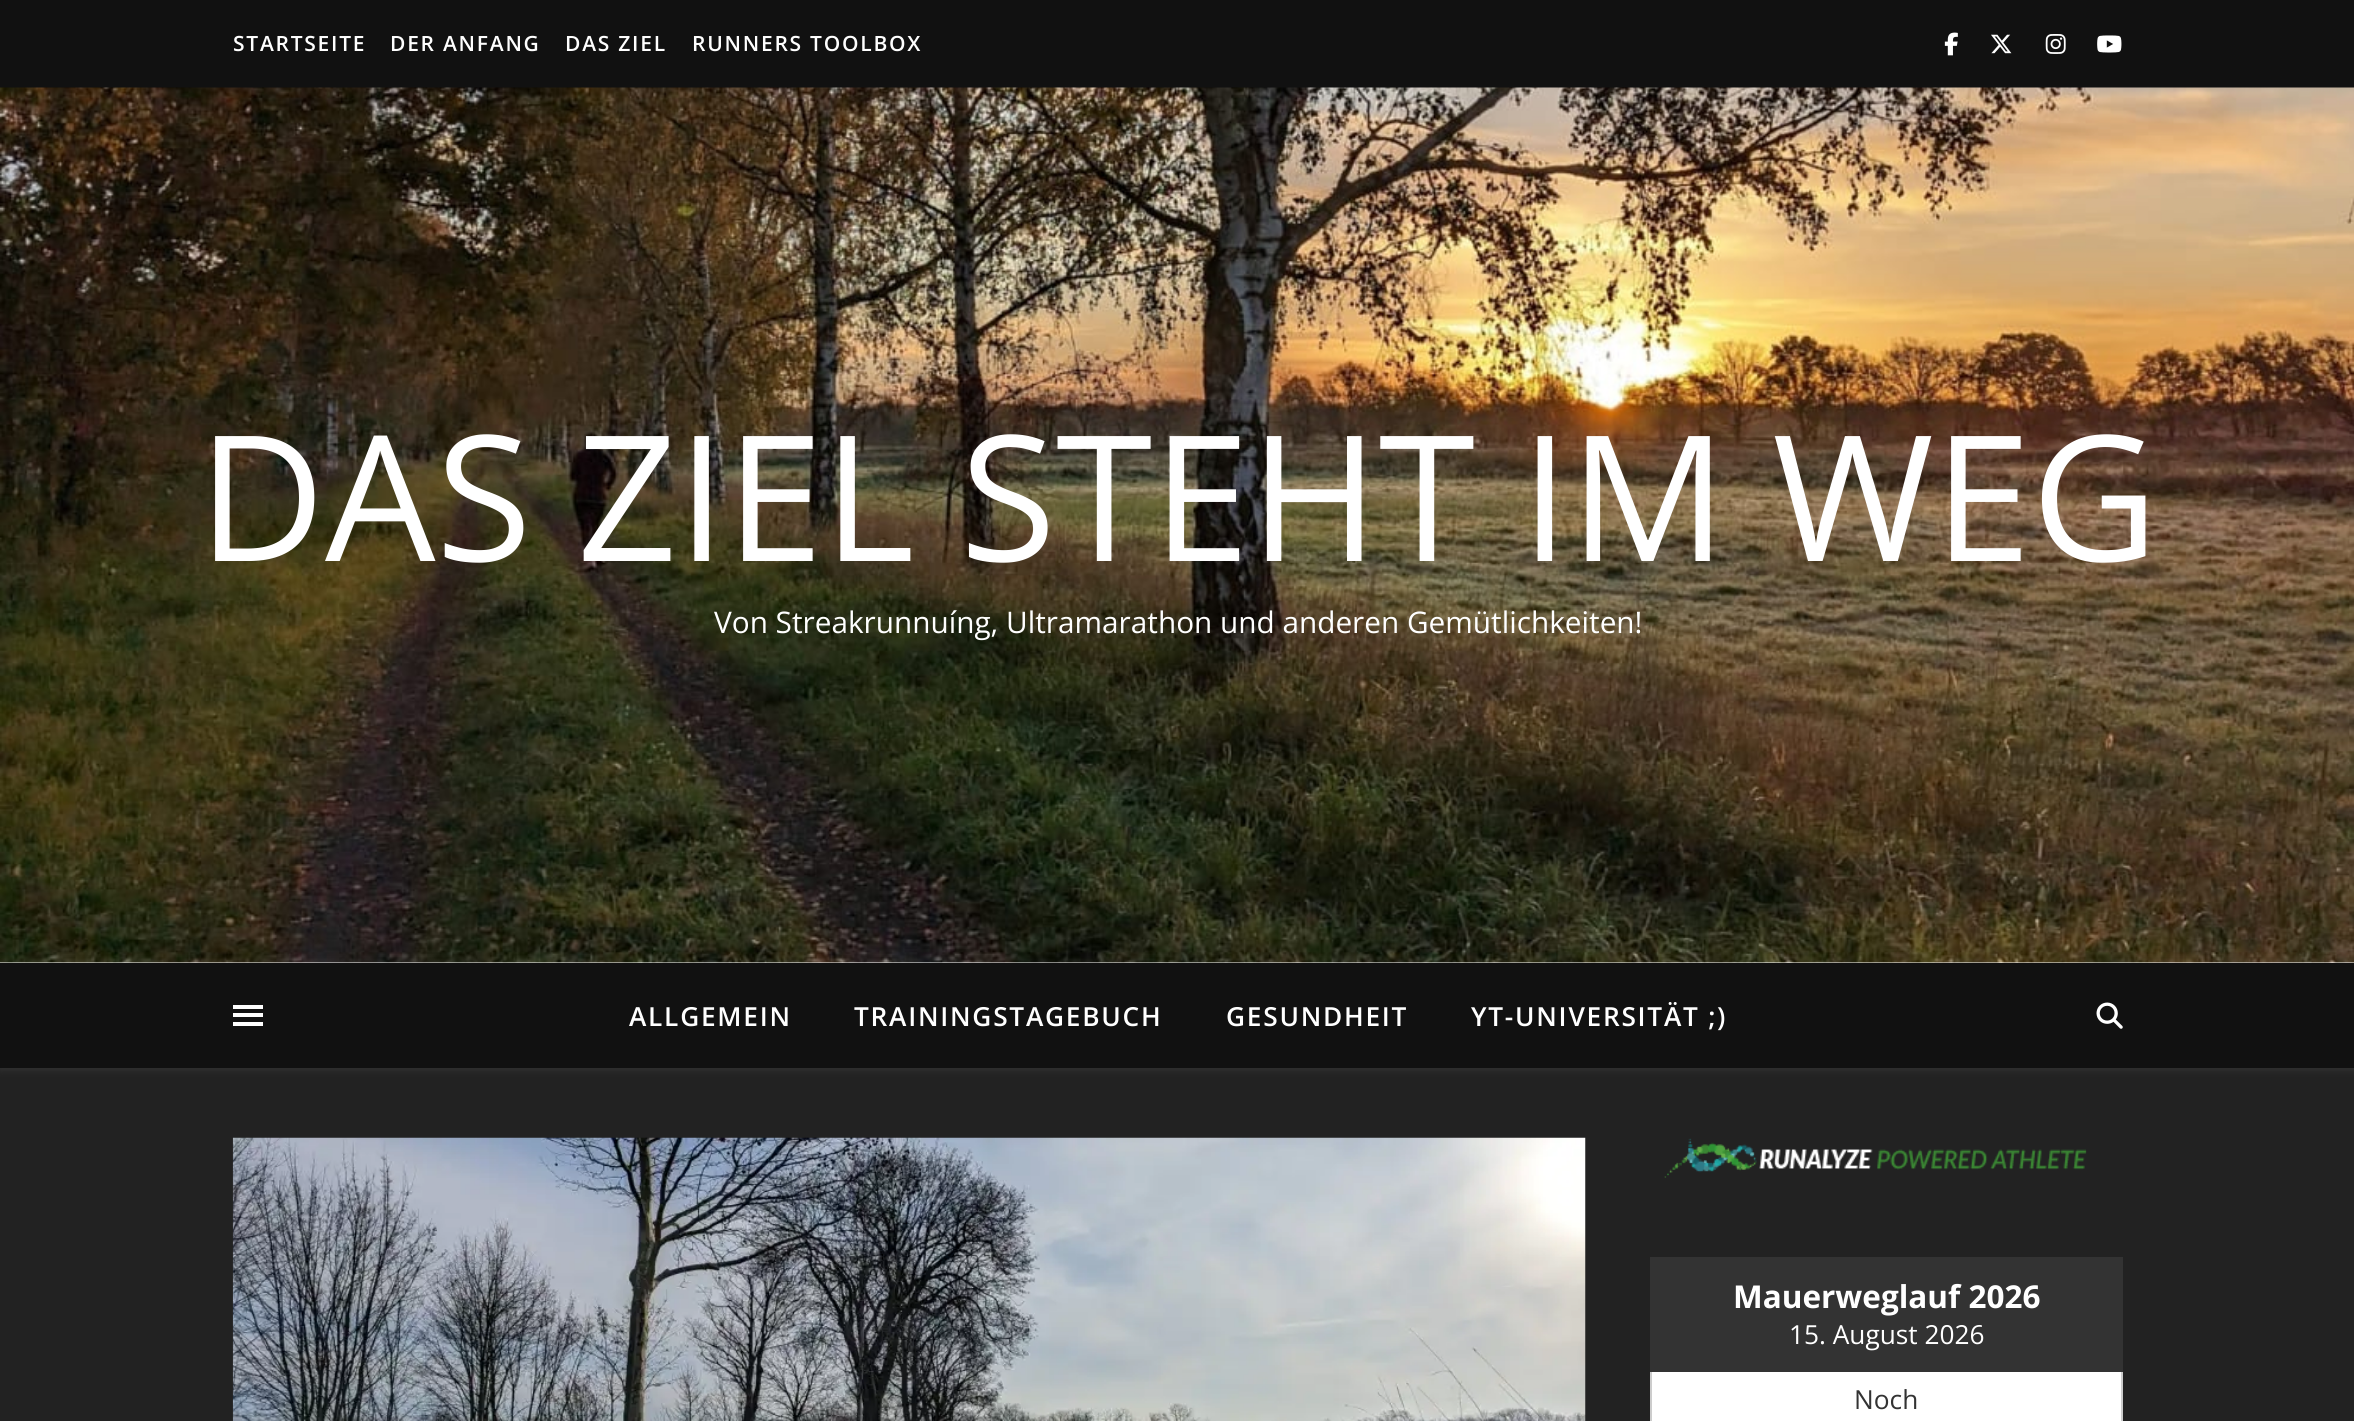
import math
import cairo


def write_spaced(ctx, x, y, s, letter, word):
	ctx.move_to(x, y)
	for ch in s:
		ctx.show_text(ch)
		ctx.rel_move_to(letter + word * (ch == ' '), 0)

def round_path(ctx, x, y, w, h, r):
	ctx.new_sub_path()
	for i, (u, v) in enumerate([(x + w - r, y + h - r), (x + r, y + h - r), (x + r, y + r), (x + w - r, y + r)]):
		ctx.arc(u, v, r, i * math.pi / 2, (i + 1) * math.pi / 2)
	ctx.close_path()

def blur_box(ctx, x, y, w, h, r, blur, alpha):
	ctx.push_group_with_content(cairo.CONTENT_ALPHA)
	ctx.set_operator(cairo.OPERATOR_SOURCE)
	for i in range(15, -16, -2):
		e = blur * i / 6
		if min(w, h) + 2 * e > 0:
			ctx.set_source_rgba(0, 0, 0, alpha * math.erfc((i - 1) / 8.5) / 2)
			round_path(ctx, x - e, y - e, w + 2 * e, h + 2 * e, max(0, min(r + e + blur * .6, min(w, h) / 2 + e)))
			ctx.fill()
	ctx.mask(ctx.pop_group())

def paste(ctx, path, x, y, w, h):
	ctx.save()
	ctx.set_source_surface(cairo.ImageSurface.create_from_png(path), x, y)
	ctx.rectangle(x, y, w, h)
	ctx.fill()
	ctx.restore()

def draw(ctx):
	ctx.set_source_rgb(0.133, 0.133, 0.133)
	ctx.paint()
	ctx.set_source_rgb(0.067, 0.067, 0.067)
	ctx.rectangle(0, 0, 2354, 88)
	ctx.fill()
	ctx.select_font_face('Open Sans SemiBold')
	ctx.set_font_size(21)
	ctx.set_source_rgb(1, 1, 1)
	for x, y, s in [
		(233, 51, 'STARTSEITE'),
		(390, 51, 'DER ANFANG'),
		(565, 51, 'DAS ZIEL'),
		(692, 51, 'RUNNERS TOOLBOX'),
	]:
		write_spaced(ctx, x, y, s, 1.75, 0)
	paste(ctx, 'media/1.png', 1944, 32, 14, 24)
	paste(ctx, 'media/2.png', 1991, 34, 21, 20)
	paste(ctx, 'media/3.png', 2045, 34, 21, 20)
	paste(ctx, 'media/4.png', 2097, 35, 25, 18)
	ctx.rectangle(0, 962, 2354, 1)
	ctx.fill()
	paste(ctx, 'media/5.png', 0, 87, 2354, 876)
	ctx.select_font_face('Open Sans')
	ctx.set_font_size(175)
	ctx.move_to(198, 561)
	ctx.show_text('DAS ZIEL STEHT IM WEG')
	ctx.set_font_size(29.75)
	ctx.move_to(714, 633)
	ctx.show_text('Von Streakrunnuíng, Ultramarathon und anderen Gemütlichkeiten!')
	ctx.set_source_rgb(1, 1, 1)
	blur_box(ctx, 0, 964, 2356, 105, 0, 4.5, 0.1)
	ctx.set_source_rgb(0.067, 0.067, 0.067)
	ctx.rectangle(0, 963, 2354, 105)
	ctx.fill()
	ctx.set_source_rgb(1, 1, 1)
	ctx.rectangle(233, 1005, 30, 4)
	ctx.rectangle(233, 1013, 30, 4)
	ctx.rectangle(233, 1022, 30, 4)
	ctx.fill()
	ctx.select_font_face('Open Sans SemiBold')
	ctx.set_font_size(26.25)
	for x, y, s in [
		(629, 1026, 'ALLGEMEIN'),
		(854, 1026, 'TRAININGSTAGEBUCH'),
		(1226, 1026, 'GESUNDHEIT'),
		(1471, 1026, 'YT-UNIVERSITÄT ;)'),
	]:
		write_spaced(ctx, x, y, s, 1.75, 0)
	paste(ctx, 'media/6.png', 2096, 1002, 27, 27)
	paste(ctx, 'media/7.png', 232, 1137, 1354, 284)
	paste(ctx, 'media/8.png', 1664, 1138, 423, 40)
	ctx.set_source_rgb(0.2, 0.2, 0.2)
	ctx.rectangle(1650, 1257, 473, 115)
	ctx.fill()
	ctx.select_font_face('Open Sans', cairo.FONT_SLANT_NORMAL, cairo.FONT_WEIGHT_BOLD)
	ctx.set_font_size(31.5)
	ctx.set_source_rgb(1, 1, 1)
	ctx.move_to(1733, 1308)
	ctx.show_text('Mauerweglauf 2026')
	ctx.select_font_face('Open Sans')
	ctx.set_font_size(26.25)
	ctx.move_to(1789, 1344)
	ctx.show_text('15. August 2026')
	ctx.rectangle(1652, 1372, 469, 49)
	ctx.fill()
	ctx.set_source_rgb(0.8, 0.8, 0.8)
	ctx.rectangle(2121, 1372, 2, 49)
	ctx.rectangle(1650, 1372, 2, 49)
	ctx.fill()
	ctx.set_source_rgb(0.2, 0.2, 0.2)
	ctx.move_to(1854, 1409)
	ctx.show_text('Noch')


surface = cairo.ImageSurface(cairo.FORMAT_RGB24, 2354, 1421)
ctx = cairo.Context(surface)
options = cairo.FontOptions()
options.set_hint_metrics(cairo.HINT_METRICS_OFF)
options.set_hint_style(cairo.HINT_STYLE_NONE)
ctx.set_font_options(options)
ctx.set_miter_limit(4)
draw(ctx)
surface.write_to_png('image.png')
